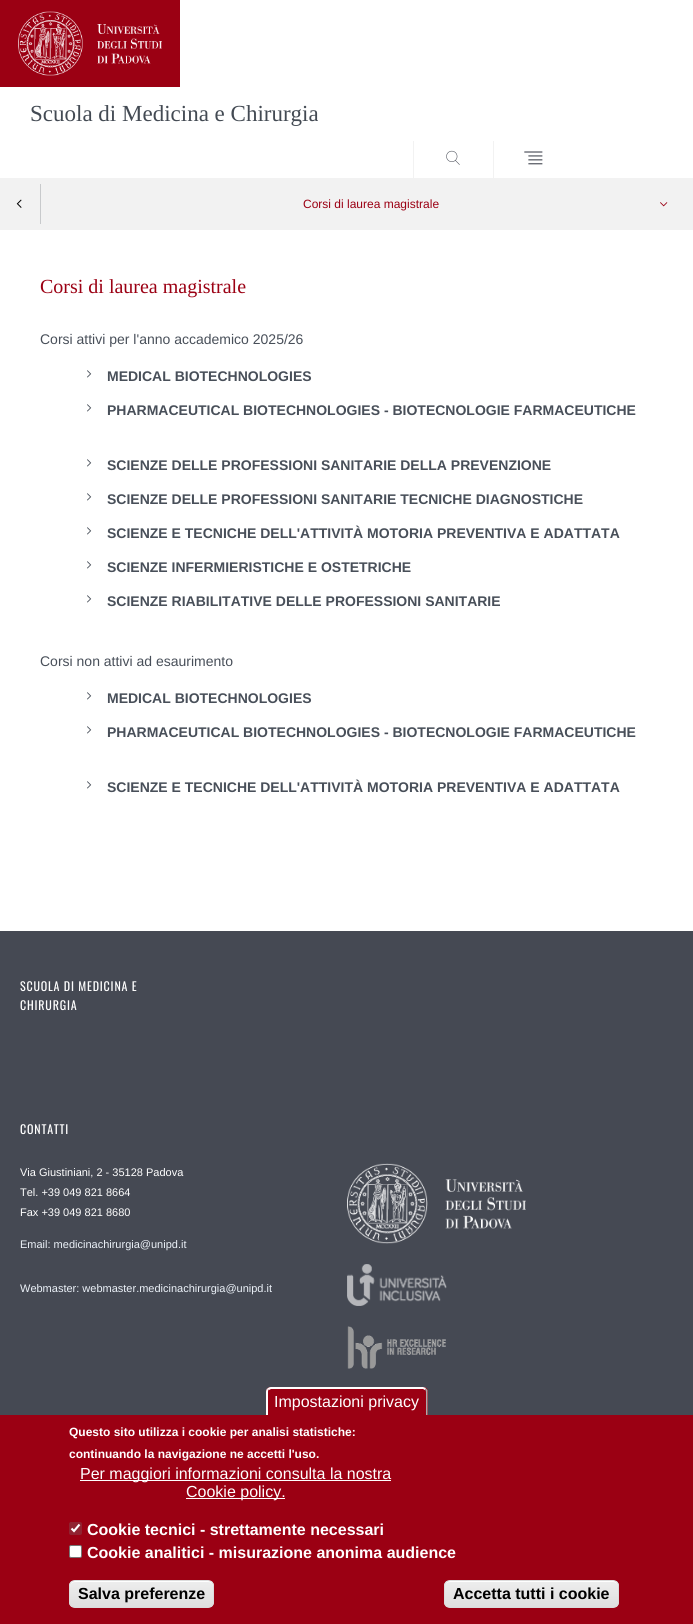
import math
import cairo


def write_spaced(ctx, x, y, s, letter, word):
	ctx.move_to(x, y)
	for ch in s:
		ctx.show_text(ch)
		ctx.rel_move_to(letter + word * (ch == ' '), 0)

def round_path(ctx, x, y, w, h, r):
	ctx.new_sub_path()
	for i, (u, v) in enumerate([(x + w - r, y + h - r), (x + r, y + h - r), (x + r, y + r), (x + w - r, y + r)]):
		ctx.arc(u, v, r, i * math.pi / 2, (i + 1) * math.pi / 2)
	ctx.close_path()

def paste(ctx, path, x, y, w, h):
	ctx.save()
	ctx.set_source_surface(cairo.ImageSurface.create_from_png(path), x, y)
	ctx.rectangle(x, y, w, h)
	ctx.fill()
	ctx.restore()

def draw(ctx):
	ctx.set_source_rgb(1, 1, 1)
	ctx.paint()
	ctx.set_source_rgb(0.608, 0, 0.078)
	ctx.rectangle(0, 0, 180, 87)
	ctx.fill()
	paste(ctx, 'media/1.png', 18, 11, 144, 65)
	ctx.select_font_face('Liberation Serif')
	ctx.set_font_size(23)
	ctx.set_source_rgb(0.263, 0.29, 0.325)
	ctx.move_to(30, 121)
	ctx.show_text('Scuola di Medicina e Chirurgia')
	ctx.set_source_rgb(0.949, 0.949, 0.949)
	ctx.rectangle(413, 141, 1, 37)
	ctx.fill()
	paste(ctx, 'media/2.png', 446, 150, 14, 15)
	ctx.rectangle(493, 141, 1, 37)
	ctx.fill()
	paste(ctx, 'media/3.png', 524, 151, 19, 14)
	ctx.rectangle(0, 178, 693, 52)
	ctx.fill()
	ctx.set_source_rgb(0.784, 0.792, 0.8)
	ctx.rectangle(40, 184, 1, 40)
	ctx.fill()
	paste(ctx, 'media/4.png', 16, 199, 6, 9)
	ctx.select_font_face('Liberation Sans')
	ctx.set_font_size(12)
	ctx.set_source_rgb(0.608, 0, 0.078)
	ctx.move_to(303, 208)
	ctx.show_text('Corsi di laurea magistrale')
	paste(ctx, 'media/5.png', 660, 202, 8, 5)
	ctx.select_font_face('Liberation Serif')
	ctx.set_font_size(20)
	ctx.move_to(40, 293)
	ctx.show_text('Corsi di laurea magistrale')
	ctx.select_font_face('Liberation Sans')
	ctx.set_font_size(14)
	ctx.set_source_rgb(0.282, 0.31, 0.349)
	ctx.move_to(40, 344)
	ctx.show_text('Corsi attivi per l\'anno accademico 2025/26')
	paste(ctx, 'media/6.png', 87, 370, 5, 8)
	ctx.select_font_face('Liberation Sans', cairo.FONT_SLANT_NORMAL, cairo.FONT_WEIGHT_BOLD)
	ctx.move_to(107, 381)
	ctx.show_text('MEDICAL BIOTECHNOLOGIES')
	paste(ctx, 'media/6.png', 87, 404, 5, 8)
	ctx.move_to(107, 415)
	ctx.show_text('PHARMACEUTICAL BIOTECHNOLOGIES - BIOTECNOLOGIE FARMACEUTICHE')
	paste(ctx, 'media/6.png', 87, 459, 5, 8)
	ctx.move_to(107, 470)
	ctx.show_text('SCIENZE DELLE PROFESSIONI SANITARIE DELLA PREVENZIONE')
	paste(ctx, 'media/6.png', 87, 493, 5, 8)
	ctx.move_to(107, 504)
	ctx.show_text('SCIENZE DELLE PROFESSIONI SANITARIE TECNICHE DIAGNOSTICHE')
	paste(ctx, 'media/6.png', 87, 527, 5, 8)
	ctx.move_to(107, 538)
	ctx.show_text('SCIENZE E TECNICHE DELL\'ATTIVITÀ MOTORIA PREVENTIVA E ADATTATA')
	paste(ctx, 'media/6.png', 87, 561, 5, 8)
	ctx.move_to(107, 572)
	ctx.show_text('SCIENZE INFERMIERISTICHE E OSTETRICHE')
	paste(ctx, 'media/6.png', 87, 595, 5, 8)
	ctx.move_to(107, 606)
	ctx.show_text('SCIENZE RIABILITATIVE DELLE PROFESSIONI SANITARIE')
	ctx.select_font_face('Liberation Sans')
	ctx.move_to(40, 666)
	ctx.show_text('Corsi non attivi ad esaurimento')
	paste(ctx, 'media/6.png', 87, 692, 5, 8)
	ctx.select_font_face('Liberation Sans', cairo.FONT_SLANT_NORMAL, cairo.FONT_WEIGHT_BOLD)
	ctx.move_to(107, 703)
	ctx.show_text('MEDICAL BIOTECHNOLOGIES')
	paste(ctx, 'media/6.png', 87, 726, 5, 8)
	ctx.move_to(107, 737)
	ctx.show_text('PHARMACEUTICAL BIOTECHNOLOGIES - BIOTECNOLOGIE FARMACEUTICHE')
	paste(ctx, 'media/6.png', 87, 781, 5, 8)
	ctx.move_to(107, 792)
	ctx.show_text('SCIENZE E TECNICHE DELL\'ATTIVITÀ MOTORIA PREVENTIVA E ADATTATA')
	ctx.set_source_rgb(0.271, 0.286, 0.325)
	ctx.rectangle(0, 931, 693, 484)
	ctx.fill()
	ctx.select_font_face('Oswald')
	ctx.set_font_size(12)
	ctx.set_source_rgb(1, 1, 1)
	for x, y, s in [
		(20, 991, 'SCUOLA DI MEDICINA E'),
		(20, 1010, 'CHIRURGIA'),
		(20, 1134, 'CONTATTI'),
	]:
		write_spaced(ctx, x, y, s, 0.8, 0)
	ctx.select_font_face('Liberation Sans')
	ctx.set_font_size(11)
	for x, y, s in [
		(20, 1176, 'Via Giustiniani, 2 - 35128 Padova'),
		(20, 1196, 'Tel. +39 049 821 8664'),
		(20, 1216, 'Fax +39 049 821 8680'),
	]:
		ctx.move_to(x, y)
		ctx.show_text(s)
	ctx.set_source_rgb(0.925, 0.949, 0.973)
	ctx.move_to(20, 1248)
	ctx.show_text('Email: medicinachirurgia@unipd.it')
	ctx.move_to(20, 1292)
	ctx.show_text('Webmaster: webmaster.medicinachirurgia@unipd.it')
	paste(ctx, 'media/7.png', 347, 1163, 179, 81)
	paste(ctx, 'media/8.png', 347, 1264, 100, 42)
	paste(ctx, 'media/9.png', 347, 1326, 99, 43)
	ctx.set_source_rgb(0.608, 0, 0.078)
	ctx.rectangle(0, 1415, 693, 209)
	ctx.fill()
	ctx.new_path()
	ctx.move_to(271, 1387)
	ctx.line_to(423, 1387)
	ctx.curve_to(426, 1387, 428, 1389, 428, 1392)
	ctx.line_to(428, 1415)
	ctx.line_to(266, 1415)
	ctx.line_to(266, 1392)
	ctx.curve_to(266, 1389, 268, 1387, 271, 1387)
	ctx.close_path()
	ctx.fill()
	ctx.set_source_rgb(1, 1, 1)
	ctx.new_path()
	ctx.move_to(271, 1387)
	ctx.line_to(423, 1387)
	ctx.line_to(426, 1388)
	ctx.line_to(425, 1390)
	ctx.line_to(423, 1389)
	ctx.line_to(271, 1389)
	ctx.line_to(269, 1390)
	ctx.line_to(267, 1389)
	ctx.curve_to(268, 1388, 269, 1387, 271, 1387)
	ctx.close_path()
	ctx.fill()
	ctx.set_source_rgb(0.667, 0.667, 0.667)
	ctx.new_path()
	ctx.move_to(425, 1389.5)
	ctx.line_to(426, 1388.5)
	ctx.line_to(427.5, 1390)
	ctx.line_to(427.5, 1415)
	ctx.line_to(426, 1415)
	ctx.line_to(426, 1392)
	ctx.curve_to(426, 1391, 425.5, 1390, 425, 1389.5)
	ctx.close_path()
	ctx.fill()
	ctx.set_source_rgb(1, 1, 1)
	ctx.new_path()
	ctx.move_to(266, 1415)
	ctx.line_to(268, 1415)
	ctx.line_to(268, 1392)
	ctx.curve_to(268, 1391, 268, 1390.5, 268.5, 1390)
	ctx.line_to(267, 1388.5)
	ctx.curve_to(266.5, 1389.5, 266, 1390.5, 266, 1392)
	ctx.close_path()
	ctx.fill()
	ctx.set_font_size(16)
	ctx.move_to(274, 1407)
	ctx.show_text('Impostazioni privacy')
	ctx.select_font_face('Liberation Sans', cairo.FONT_SLANT_NORMAL, cairo.FONT_WEIGHT_BOLD)
	ctx.set_font_size(12)
	ctx.move_to(69, 1436)
	ctx.show_text('Questo sito utilizza i cookie per analisi statistiche:')
	ctx.move_to(69, 1458)
	ctx.show_text('continuando la navigazione ne accetti l\'uso.')
	ctx.rectangle(80, 1480, 311, 1)
	ctx.fill()
	ctx.select_font_face('Liberation Sans')
	ctx.set_font_size(16)
	ctx.move_to(80, 1479)
	ctx.show_text('Per maggiori informazioni consulta la nostra')
	ctx.rectangle(186, 1498, 99, 1)
	ctx.fill()
	ctx.move_to(186, 1497)
	ctx.show_text('Cookie policy.')
	ctx.set_source_rgb(0.565, 0.137, 0.192)
	round_path(ctx, 69, 1522, 13, 13, 2)
	ctx.fill()
	ctx.new_path()
	ctx.move_to(71.5, 1528.5)
	ctx.line_to(74, 1531)
	ctx.line_to(79.5, 1524.5)
	ctx.set_source_rgb(1, 1, 1)
	ctx.set_line_width(2.1)
	ctx.stroke()
	ctx.select_font_face('Liberation Sans', cairo.FONT_SLANT_NORMAL, cairo.FONT_WEIGHT_BOLD)
	ctx.move_to(87, 1535)
	ctx.show_text('Cookie tecnici - strettamente necessari')
	round_path(ctx, 69.5, 1545.5, 12, 12, 1.5)
	ctx.fill_preserve()
	ctx.set_source_rgb(0.463, 0.463, 0.463)
	ctx.set_line_width(1)
	ctx.stroke()
	ctx.set_source_rgb(1, 1, 1)
	ctx.move_to(87, 1558)
	ctx.show_text('Cookie analitici - misurazione anonima audience')
	ctx.save()
	round_path(ctx, 69, 1580, 145, 28, 6)
	ctx.clip()
	gradient = cairo.LinearGradient(142, 1581, 142, 1607)
	gradient.add_color_stop_rgba(0.05, 0.929, 0.929, 0.929, 1)
	gradient.add_color_stop_rgba(1, 0.875, 0.875, 0.875, 1)
	ctx.set_source(gradient)
	ctx.rectangle(69, 1581, 145, 26)
	ctx.fill()
	ctx.restore()
	ctx.new_path()
	ctx.move_to(75, 1582)
	ctx.line_to(208, 1582)
	ctx.curve_to(211, 1582, 213, 1584, 213, 1587)
	ctx.line_to(213, 1586)
	ctx.curve_to(213, 1583, 211, 1581, 208, 1581)
	ctx.line_to(75, 1581)
	ctx.curve_to(72, 1581, 70, 1583, 70, 1586)
	ctx.line_to(70, 1587)
	ctx.curve_to(70, 1584, 72, 1582, 75, 1582)
	ctx.close_path()
	ctx.fill()
	round_path(ctx, 69.5, 1580.5, 144, 27, 5.5)
	ctx.set_source_rgb(0.863, 0.863, 0.863)
	ctx.stroke()
	ctx.set_source_rgb(0, 0, 0)
	ctx.move_to(78, 1599)
	ctx.show_text('Salva preferenze')
	ctx.save()
	round_path(ctx, 444, 1580, 175, 28, 6)
	ctx.clip()
	gradient = cairo.LinearGradient(532, 1581, 532, 1607)
	gradient.add_color_stop_rgba(0.05, 0.929, 0.929, 0.929, 1)
	gradient.add_color_stop_rgba(1, 0.875, 0.875, 0.875, 1)
	ctx.set_source(gradient)
	ctx.rectangle(444, 1581, 175, 26)
	ctx.fill()
	ctx.restore()
	ctx.set_source_rgb(1, 1, 1)
	ctx.new_path()
	ctx.move_to(450, 1582)
	ctx.line_to(613, 1582)
	ctx.curve_to(616, 1582, 618, 1584, 618, 1587)
	ctx.curve_to(618, 1584, 617, 1582, 614, 1581)
	ctx.line_to(450, 1581)
	ctx.curve_to(447, 1581, 445, 1584, 445, 1587)
	ctx.curve_to(445, 1584, 447, 1582, 450, 1582)
	ctx.close_path()
	ctx.fill()
	round_path(ctx, 444.5, 1580.5, 174, 27, 5.5)
	ctx.set_source_rgb(0.863, 0.863, 0.863)
	ctx.stroke()
	ctx.set_source_rgb(0, 0, 0)
	ctx.move_to(453, 1599)
	ctx.show_text('Accetta tutti i cookie')


surface = cairo.ImageSurface(cairo.FORMAT_RGB24, 693, 1624)
ctx = cairo.Context(surface)
options = cairo.FontOptions()
options.set_hint_metrics(cairo.HINT_METRICS_OFF)
options.set_hint_style(cairo.HINT_STYLE_NONE)
ctx.set_font_options(options)
ctx.set_miter_limit(4)
draw(ctx)
surface.write_to_png('image.png')
